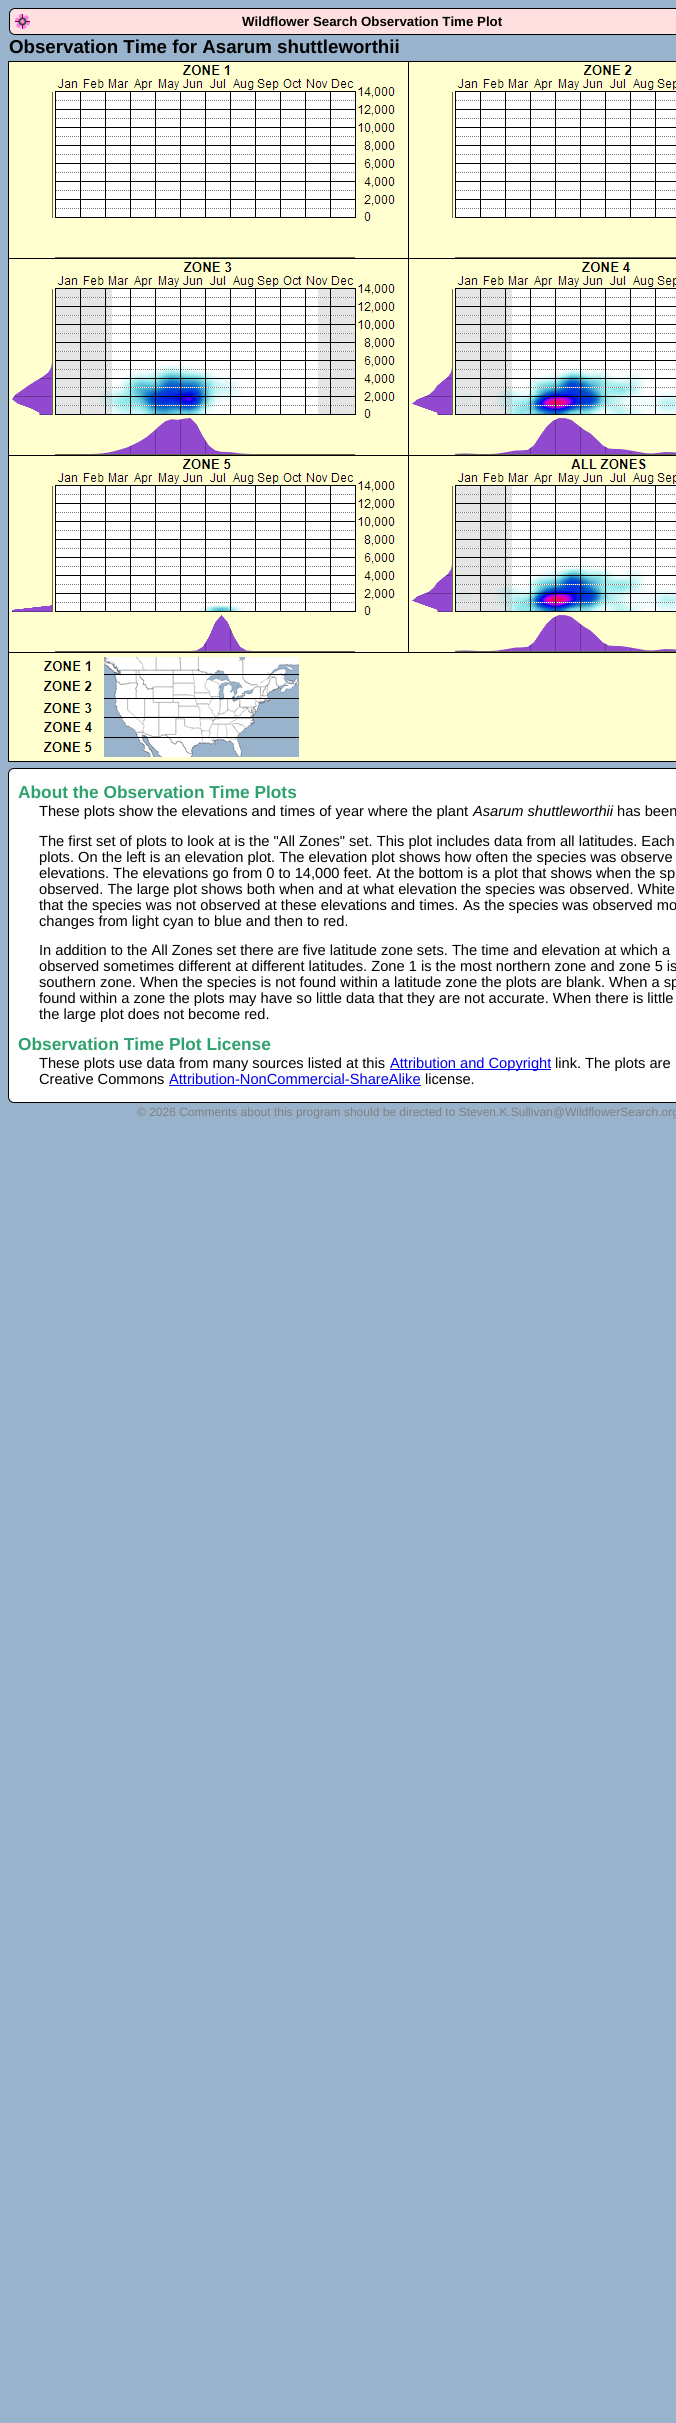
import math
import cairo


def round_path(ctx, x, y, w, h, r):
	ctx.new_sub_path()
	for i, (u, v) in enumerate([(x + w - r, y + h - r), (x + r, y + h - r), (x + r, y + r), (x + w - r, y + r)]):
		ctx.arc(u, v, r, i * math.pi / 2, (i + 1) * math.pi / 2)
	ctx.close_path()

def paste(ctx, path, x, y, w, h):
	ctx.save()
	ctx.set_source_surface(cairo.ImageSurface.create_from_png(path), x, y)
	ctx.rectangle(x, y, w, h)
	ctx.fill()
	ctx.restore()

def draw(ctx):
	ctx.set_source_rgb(0.6, 0.702, 0.8)
	ctx.paint()
	ctx.set_source_rgb(1, 0.878, 0.878)
	round_path(ctx, 9.5, 8.5, 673, 26, 5.5)
	ctx.fill_preserve()
	ctx.set_source_rgb(0, 0, 0)
	ctx.set_line_width(1)
	ctx.stroke()
	paste(ctx, 'media/1.png', 15, 14, 15, 15)
	ctx.select_font_face('Liberation Sans', cairo.FONT_SLANT_NORMAL, cairo.FONT_WEIGHT_BOLD)
	ctx.set_font_size(13.3)
	ctx.move_to(242, 26)
	ctx.show_text('Wildflower Search Observation Time Plot')
	ctx.set_font_size(18.7)
	ctx.move_to(9, 53)
	ctx.show_text('Observation Time for Asarum shuttleworthii')
	paste(ctx, 'media/2.png', 8, 61, 668, 701)
	ctx.set_source_rgb(1, 1, 1)
	round_path(ctx, 8.5, 768.5, 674, 334, 5.5)
	ctx.fill_preserve()
	ctx.set_source_rgb(0, 0, 0)
	ctx.stroke()
	ctx.set_font_size(17.3)
	ctx.set_source_rgb(0.184, 0.631, 0.427)
	ctx.move_to(18, 798)
	ctx.show_text('About the Observation Time Plots')
	ctx.select_font_face('Liberation Sans')
	ctx.set_font_size(14.65)
	ctx.set_source_rgb(0, 0, 0)
	ctx.move_to(39, 816)
	ctx.show_text('These plots show the elevations and times of year where the plant')
	ctx.select_font_face('Liberation Sans', cairo.FONT_SLANT_ITALIC)
	ctx.move_to(473, 816)
	ctx.show_text('Asarum shuttleworthii')
	ctx.select_font_face('Liberation Sans')
	for x, y, s in [
		(617, 816, 'has been'),
		(39, 846, 'The first set of plots to look at is the "All Zones" set. This plot includes data from all latitudes. Each'),
		(39, 862, 'plots. On the left is an elevation plot. The elevation plot shows how often the species was observe'),
		(39, 878, 'elevations. The elevations go from 0 to 14,000 feet. At the bottom is a plot that shows when the sp'),
		(39, 894, 'observed. The large plot shows both when and at what elevation the species was observed. White'),
		(39, 910, 'that the species was not observed at these elevations and times.'),
		(463, 910, 'As the species was observed mo'),
		(39, 926, 'changes from light cyan to blue and then to red.'),
		(39, 955, 'In addition to the All Zones set there are five latitude zone sets. The time and elevation at which a'),
		(39, 971, 'observed sometimes different at different latitudes. Zone 1 is the most northern zone and zone 5 is'),
		(39, 987, 'southern zone. When the species is not found within a latitude zone the plots are blank. When a sp'),
		(39, 1003, 'found within a zone the plots may have so little data that they are not accurate. When there is little'),
		(39, 1019, 'the large plot does not become red.'),
	]:
		ctx.move_to(x, y)
		ctx.show_text(s)
	ctx.select_font_face('Liberation Sans', cairo.FONT_SLANT_NORMAL, cairo.FONT_WEIGHT_BOLD)
	ctx.set_font_size(17.3)
	ctx.set_source_rgb(0.184, 0.631, 0.427)
	ctx.move_to(18, 1050)
	ctx.show_text('Observation Time Plot License')
	ctx.select_font_face('Liberation Sans')
	ctx.set_font_size(14.65)
	ctx.set_source_rgb(0, 0, 0)
	ctx.move_to(39, 1068)
	ctx.show_text('These plots use data from many sources listed at this')
	ctx.set_source_rgb(0, 0, 0.933)
	ctx.rectangle(390, 1069, 161, 1)
	ctx.fill()
	ctx.move_to(390, 1068)
	ctx.show_text('Attribution and Copyright')
	ctx.set_source_rgb(0, 0, 0)
	ctx.move_to(555, 1068)
	ctx.show_text('link. The plots are')
	ctx.move_to(39, 1084)
	ctx.show_text('Creative Commons')
	ctx.set_source_rgb(0, 0, 0.933)
	ctx.move_to(169, 1084)
	ctx.show_text('Attribution-NonCommercial-ShareAlike')
	ctx.rectangle(169, 1085, 252, 1)
	ctx.fill()
	ctx.set_source_rgb(0, 0, 0)
	ctx.move_to(425, 1084)
	ctx.show_text('license.')
	ctx.set_font_size(12)
	ctx.set_source_rgb(0.502, 0.502, 0.502)
	ctx.move_to(137, 1116)
	ctx.show_text('© 2026 Comments about this program should be directed to Steven.K.Sullivan@WildflowerSearch.org')


surface = cairo.ImageSurface(cairo.FORMAT_RGB24, 676, 2423)
ctx = cairo.Context(surface)
options = cairo.FontOptions()
options.set_hint_metrics(cairo.HINT_METRICS_OFF)
options.set_hint_style(cairo.HINT_STYLE_NONE)
ctx.set_font_options(options)
ctx.set_miter_limit(4)
draw(ctx)
surface.write_to_png('image.png')
